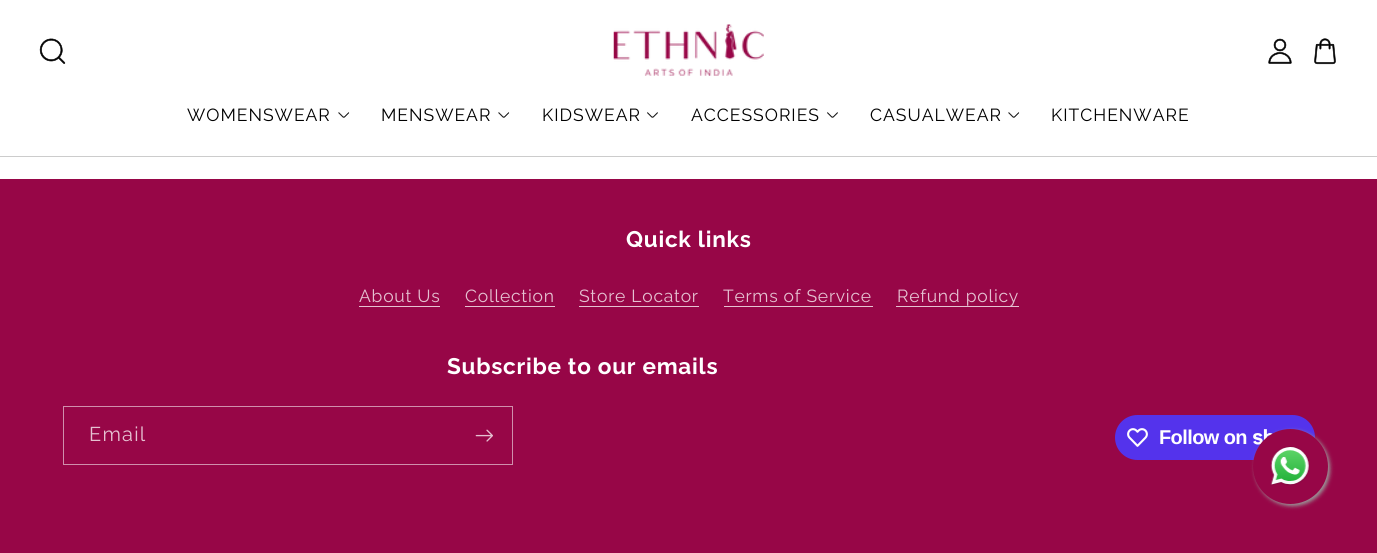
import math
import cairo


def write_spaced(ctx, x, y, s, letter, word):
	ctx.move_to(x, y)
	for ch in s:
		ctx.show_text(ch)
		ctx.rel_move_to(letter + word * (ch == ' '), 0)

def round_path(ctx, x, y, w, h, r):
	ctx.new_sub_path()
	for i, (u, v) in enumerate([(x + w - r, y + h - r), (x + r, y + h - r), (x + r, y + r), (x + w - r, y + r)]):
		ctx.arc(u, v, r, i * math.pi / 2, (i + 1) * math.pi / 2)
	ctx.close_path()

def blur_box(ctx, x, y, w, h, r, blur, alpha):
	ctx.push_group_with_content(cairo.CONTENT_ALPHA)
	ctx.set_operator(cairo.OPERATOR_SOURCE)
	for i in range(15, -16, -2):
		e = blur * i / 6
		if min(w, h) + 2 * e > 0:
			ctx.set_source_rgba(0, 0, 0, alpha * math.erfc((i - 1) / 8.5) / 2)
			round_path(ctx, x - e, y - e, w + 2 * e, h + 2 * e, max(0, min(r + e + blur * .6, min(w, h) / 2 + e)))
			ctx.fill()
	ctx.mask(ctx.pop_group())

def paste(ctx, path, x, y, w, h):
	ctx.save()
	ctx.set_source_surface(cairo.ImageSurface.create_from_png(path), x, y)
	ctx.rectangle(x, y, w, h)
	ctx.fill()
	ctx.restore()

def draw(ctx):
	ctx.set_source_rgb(1, 1, 1)
	ctx.paint()
	ctx.set_source_rgb(0.8, 0.8, 0.8)
	ctx.rectangle(0, 156, 1377, 1)
	ctx.fill()
	paste(ctx, 'media/1.png', 39, 38, 27, 26)
	paste(ctx, 'media/2.png', 613, 24, 151, 52)
	paste(ctx, 'media/3.png', 1268, 38, 24, 26)
	paste(ctx, 'media/4.png', 1314, 38, 22, 27)
	ctx.select_font_face('Raleway')
	ctx.set_font_size(17.5)
	ctx.set_source_rgb(0, 0, 0)
	write_spaced(ctx, 187, 121, 'WOMENSWEAR', 1, 0)
	paste(ctx, 'media/5.png', 338, 112, 12, 6)
	write_spaced(ctx, 381, 121, 'MENSWEAR', 1, 0)
	paste(ctx, 'media/5.png', 498, 112, 12, 6)
	write_spaced(ctx, 542, 121, 'KIDSWEAR', 1, 0)
	paste(ctx, 'media/6.png', 647, 112, 11, 6)
	write_spaced(ctx, 691, 121, 'ACCESSORIES', 1, 0)
	paste(ctx, 'media/6.png', 827, 112, 11, 6)
	write_spaced(ctx, 870, 121, 'CASUALWEAR', 1, 0)
	paste(ctx, 'media/5.png', 1008, 112, 12, 6)
	write_spaced(ctx, 1051, 121, 'KITCHENWARE', 1, 0)
	ctx.set_source_rgb(0.592, 0.024, 0.278)
	ctx.rectangle(0, 179, 1377, 374)
	ctx.fill()
	ctx.select_font_face('Raleway', cairo.FONT_SLANT_NORMAL, cairo.FONT_WEIGHT_BOLD)
	ctx.set_font_size(22.5)
	ctx.set_source_rgb(1, 1, 1)
	write_spaced(ctx, 626, 247, 'Quick links', 0.75, 0)
	ctx.select_font_face('Raleway')
	ctx.set_font_size(17.5)
	ctx.set_source_rgb(0.898, 0.757, 0.82)
	write_spaced(ctx, 359, 302, 'About Us', 0.75, 0)
	ctx.rectangle(359, 306, 81, 1)
	ctx.fill()
	write_spaced(ctx, 465, 302, 'Collection', 0.75, 0)
	ctx.rectangle(465, 306, 90, 1)
	ctx.fill()
	write_spaced(ctx, 579, 302, 'Store Locator', 0.75, 0)
	ctx.rectangle(579, 306, 120, 1)
	ctx.fill()
	write_spaced(ctx, 723, 302, 'Terms of Service', 0.75, 0)
	ctx.rectangle(724, 306, 149, 1)
	ctx.fill()
	write_spaced(ctx, 897, 302, 'Refund policy', 0.75, 0)
	ctx.rectangle(896, 306, 123, 1)
	ctx.fill()
	ctx.select_font_face('Raleway', cairo.FONT_SLANT_NORMAL, cairo.FONT_WEIGHT_BOLD)
	ctx.set_font_size(22.5)
	ctx.set_source_rgb(1, 1, 1)
	write_spaced(ctx, 447, 374, 'Subscribe to our emails', 0.75, 0)
	ctx.rectangle(63.5, 406.5, 449, 58)
	ctx.set_source_rgb(0.816, 0.561, 0.675)
	ctx.set_line_width(1)
	ctx.stroke()
	ctx.select_font_face('Raleway')
	ctx.set_font_size(20)
	ctx.set_source_rgb(0.898, 0.757, 0.82)
	write_spaced(ctx, 89, 441, 'Email', 1.25, 0)
	paste(ctx, 'media/7.png', 475, 429, 18, 13)
	ctx.set_source_rgb(0.329, 0.2, 0.922)
	round_path(ctx, 1115, 415, 200, 45, 22.5)
	ctx.fill()
	paste(ctx, 'media/8.png', 1127, 428, 21, 19)
	ctx.select_font_face('Liberation Sans', cairo.FONT_SLANT_NORMAL, cairo.FONT_WEIGHT_BOLD)
	ctx.set_source_rgb(1, 1, 1)
	write_spaced(ctx, 1159, 444, 'Follow on', -0.6, 0)
	paste(ctx, 'media/9.png', 1253, 429, 20, 16)
	ctx.set_source_rgb(0.6, 0.6, 0.6)
	blur_box(ctx, 1255, 431, 75, 75, 37.5, 2, 1)
	ctx.set_source_rgb(0.592, 0.024, 0.278)
	ctx.arc(1290.5, 466.5, 37.5, 0, 2 * math.pi)
	ctx.fill()
	paste(ctx, 'media/10.png', 1270, 446, 40, 40)


surface = cairo.ImageSurface(cairo.FORMAT_RGB24, 1377, 553)
ctx = cairo.Context(surface)
options = cairo.FontOptions()
options.set_hint_metrics(cairo.HINT_METRICS_OFF)
options.set_hint_style(cairo.HINT_STYLE_NONE)
ctx.set_font_options(options)
ctx.set_miter_limit(4)
draw(ctx)
surface.write_to_png('image.png')
